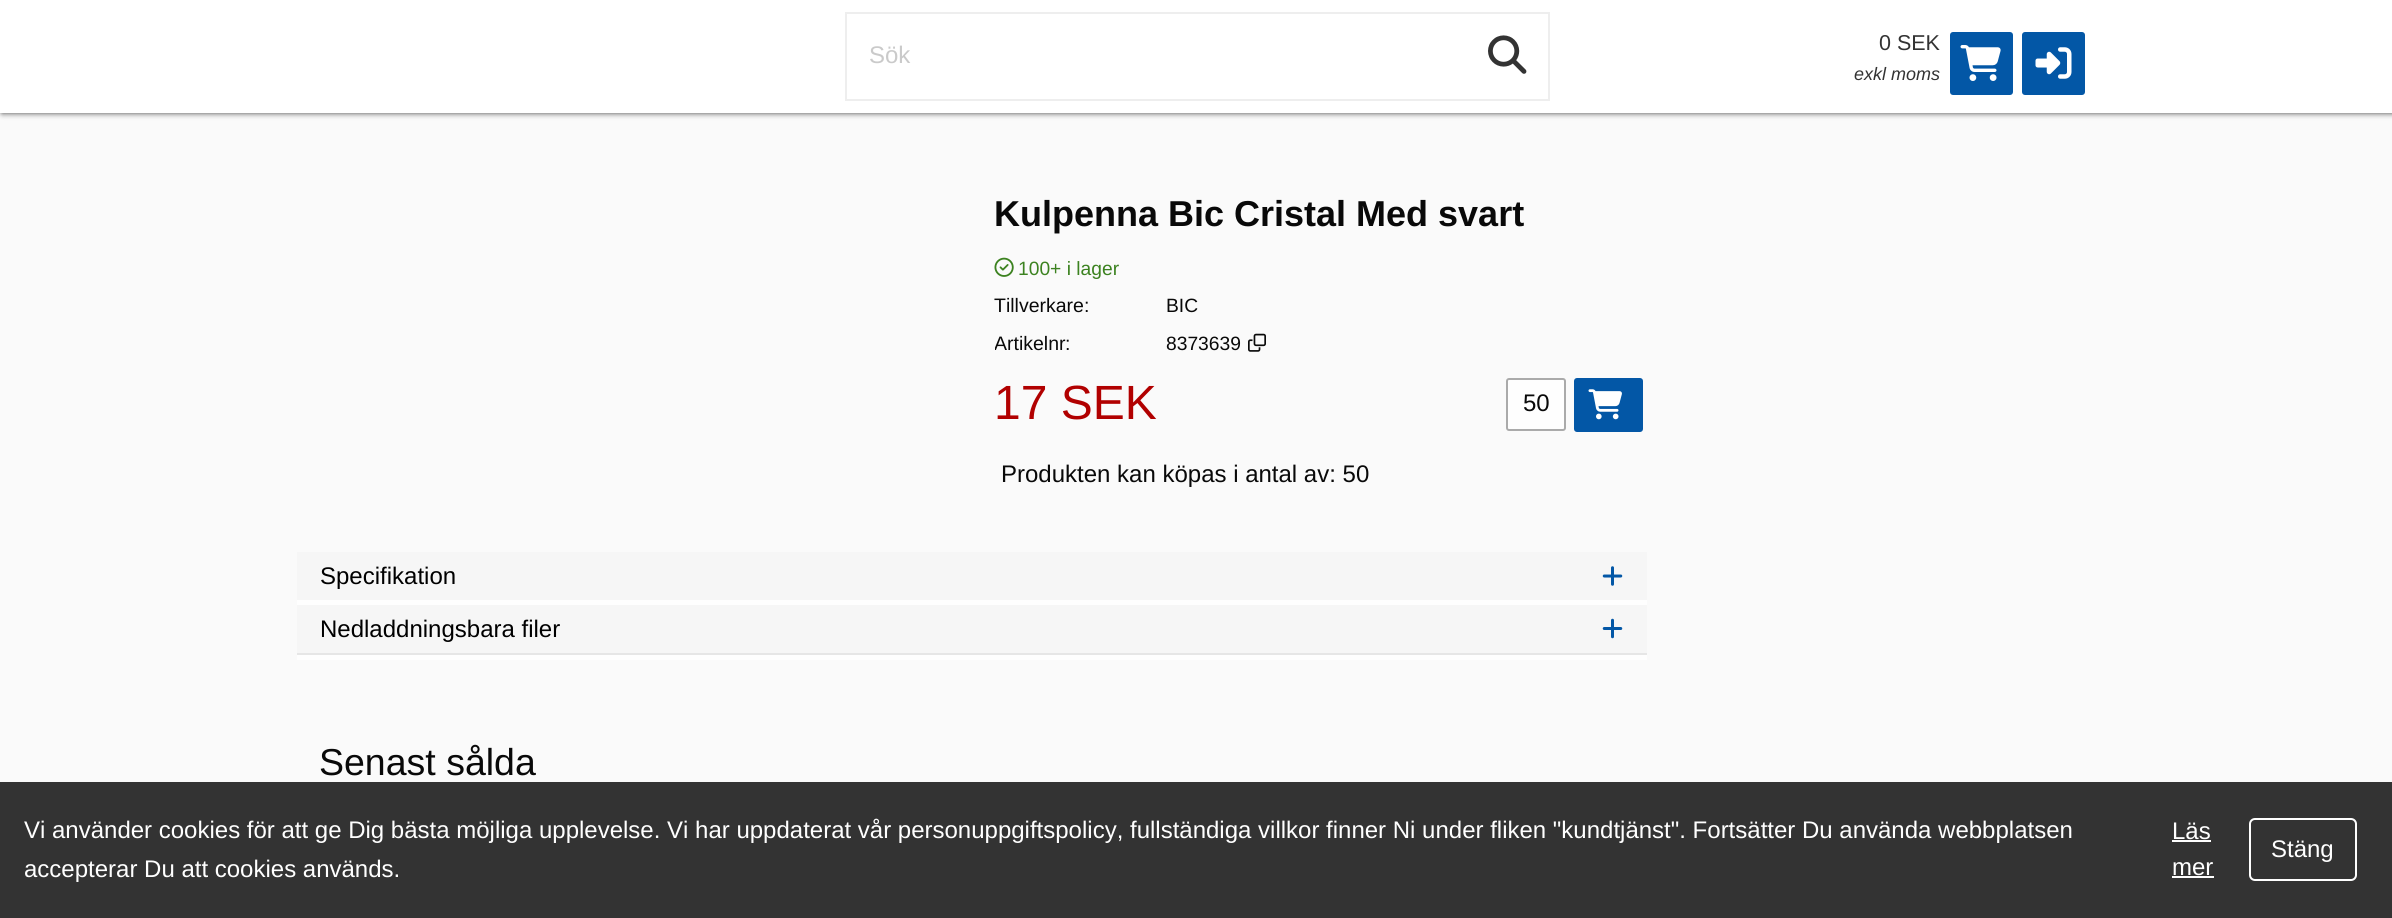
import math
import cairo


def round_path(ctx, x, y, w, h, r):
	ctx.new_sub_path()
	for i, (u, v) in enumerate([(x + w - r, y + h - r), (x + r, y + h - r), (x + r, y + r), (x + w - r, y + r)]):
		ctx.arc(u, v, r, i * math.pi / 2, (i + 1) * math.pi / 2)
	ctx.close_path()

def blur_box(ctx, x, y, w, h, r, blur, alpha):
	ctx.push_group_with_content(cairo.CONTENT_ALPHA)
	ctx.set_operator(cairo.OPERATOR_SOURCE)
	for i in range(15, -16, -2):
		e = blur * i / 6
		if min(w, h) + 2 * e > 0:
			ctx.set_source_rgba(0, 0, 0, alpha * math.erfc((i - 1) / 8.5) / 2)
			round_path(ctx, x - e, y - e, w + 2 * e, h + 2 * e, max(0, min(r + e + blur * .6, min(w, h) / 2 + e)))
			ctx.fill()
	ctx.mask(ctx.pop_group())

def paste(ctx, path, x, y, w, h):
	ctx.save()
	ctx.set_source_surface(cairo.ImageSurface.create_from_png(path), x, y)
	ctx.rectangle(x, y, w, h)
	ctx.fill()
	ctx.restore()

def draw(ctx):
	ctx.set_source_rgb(0.98, 0.98, 0.98)
	ctx.paint()
	ctx.set_source_rgb(0, 0, 0)
	blur_box(ctx, 2, 0, 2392, 113, 0, 3, 0.75)
	ctx.set_source_rgb(1, 1, 1)
	ctx.rectangle(0, 0, 2392, 113)
	ctx.fill()
	ctx.rectangle(846, 13, 703, 87)
	ctx.set_source_rgb(0.933, 0.933, 0.933)
	ctx.stroke()
	ctx.select_font_face('Liberation Sans')
	ctx.set_font_size(24)
	ctx.set_source_rgb(0.792, 0.792, 0.792)
	ctx.move_to(869, 63)
	ctx.show_text('Sök')
	paste(ctx, 'media/1.png', 1488, 35, 39, 39)
	ctx.set_font_size(21.5)
	ctx.set_source_rgb(0.2, 0.2, 0.2)
	ctx.move_to(1879, 50)
	ctx.show_text('0 SEK')
	ctx.select_font_face('Liberation Sans', cairo.FONT_SLANT_ITALIC)
	ctx.set_font_size(18)
	ctx.move_to(1854, 80)
	ctx.show_text('exkl moms')
	ctx.set_source_rgb(0.012, 0.341, 0.651)
	round_path(ctx, 1950, 32, 63, 63, 3)
	ctx.fill()
	paste(ctx, 'media/2.png', 1960, 45, 41, 36)
	round_path(ctx, 2022, 32, 63, 63, 3)
	ctx.fill()
	paste(ctx, 'media/3.png', 2035, 47, 37, 32)
	ctx.select_font_face('Liberation Sans', cairo.FONT_SLANT_NORMAL, cairo.FONT_WEIGHT_BOLD)
	ctx.set_font_size(36)
	ctx.set_source_rgb(0.039, 0.039, 0.039)
	ctx.move_to(994, 226)
	ctx.show_text('Kulpenna Bic Cristal Med svart')
	paste(ctx, 'media/4.png', 994, 257, 20, 20)
	ctx.select_font_face('Liberation Sans')
	ctx.set_font_size(19.25)
	ctx.set_source_rgb(0.235, 0.51, 0.125)
	ctx.move_to(1018, 275)
	ctx.show_text('100+ i lager')
	ctx.set_font_size(19.5)
	ctx.set_source_rgb(0.039, 0.039, 0.039)
	ctx.move_to(994, 312)
	ctx.show_text('Tillverkare:')
	ctx.set_font_size(19.25)
	ctx.move_to(1166, 312)
	ctx.show_text('BIC')
	ctx.save()
	ctx.rectangle(995, 332, 157, 22)
	ctx.clip()
	ctx.set_font_size(19.5)
	ctx.move_to(994, 350)
	ctx.show_text('Artikelnr')
	ctx.restore()
	ctx.set_font_size(19.5)
	ctx.move_to(1065, 350)
	ctx.show_text(':')
	ctx.set_font_size(19.25)
	ctx.move_to(1166, 350)
	ctx.show_text('8373639')
	paste(ctx, 'media/5.png', 1248, 333, 18, 19)
	ctx.set_font_size(48)
	ctx.set_source_rgb(0.694, 0, 0)
	ctx.move_to(994, 419)
	ctx.show_text('17 SEK')
	ctx.set_source_rgb(0.996, 0.996, 0.996)
	round_path(ctx, 1507, 379, 58, 51, 2)
	ctx.fill_preserve()
	ctx.set_source_rgb(0.667, 0.667, 0.667)
	ctx.stroke()
	ctx.set_font_size(24)
	ctx.set_source_rgb(0.039, 0.039, 0.039)
	ctx.move_to(1523, 411)
	ctx.show_text('50')
	ctx.set_source_rgb(0.012, 0.341, 0.651)
	round_path(ctx, 1574, 378, 69, 54, 3)
	ctx.fill()
	paste(ctx, 'media/6.png', 1588, 389, 34, 31)
	ctx.set_source_rgb(0.039, 0.039, 0.039)
	ctx.move_to(1001, 482)
	ctx.show_text('Produkten kan köpas i antal av: 50')
	ctx.set_source_rgb(0.996, 0.996, 0.996)
	ctx.rectangle(297, 600, 1350, 60)
	ctx.fill()
	ctx.set_source_rgb(0.961, 0.961, 0.961)
	ctx.rectangle(297, 552, 1350, 48)
	ctx.fill()
	ctx.set_source_rgb(0, 0, 0)
	ctx.move_to(320, 584)
	ctx.show_text('Specifikation')
	paste(ctx, 'media/7.png', 1602, 566, 21, 20)
	ctx.set_source_rgb(0.961, 0.961, 0.961)
	ctx.rectangle(297, 605, 1350, 48)
	ctx.fill()
	ctx.set_source_rgb(0.902, 0.902, 0.902)
	ctx.rectangle(297, 653, 1350, 2)
	ctx.fill()
	ctx.set_source_rgb(0, 0, 0)
	ctx.move_to(320, 637)
	ctx.show_text('Nedladdningsbara filer')
	paste(ctx, 'media/8.png', 1602, 618, 21, 21)
	ctx.set_font_size(37.5)
	ctx.set_source_rgb(0.039, 0.039, 0.039)
	ctx.move_to(319, 775)
	ctx.show_text('Senast sålda')
	ctx.set_source_rgb(0.2, 0.2, 0.2)
	ctx.rectangle(0, 782, 2392, 136)
	ctx.fill()
	ctx.set_font_size(24)
	ctx.set_source_rgb(1, 1, 1)
	for x, y, s in [
		(24, 838, 'Vi använder cookies för att ge Dig bästa möjliga upplevelse. Vi har uppdaterat vår personuppgiftspolicy, fullständiga villkor finner Ni under fliken "kundtjänst". Fortsätter Du använda webbplatsen'),
		(24, 877, 'accepterar Du att cookies används.'),
		(2172, 839, 'Läs'),
	]:
		ctx.move_to(x, y)
		ctx.show_text(s)
	ctx.rectangle(2172, 840, 39, 2)
	ctx.fill()
	ctx.move_to(2172, 875)
	ctx.show_text('mer')
	ctx.rectangle(2172, 876, 42, 2)
	ctx.fill()
	round_path(ctx, 2250, 819, 106, 61, 5)
	ctx.stroke()
	ctx.move_to(2271, 857)
	ctx.show_text('Stäng')


surface = cairo.ImageSurface(cairo.FORMAT_RGB24, 2392, 918)
ctx = cairo.Context(surface)
options = cairo.FontOptions()
options.set_hint_metrics(cairo.HINT_METRICS_OFF)
options.set_hint_style(cairo.HINT_STYLE_NONE)
ctx.set_font_options(options)
ctx.set_miter_limit(4)
draw(ctx)
surface.write_to_png('image.png')
